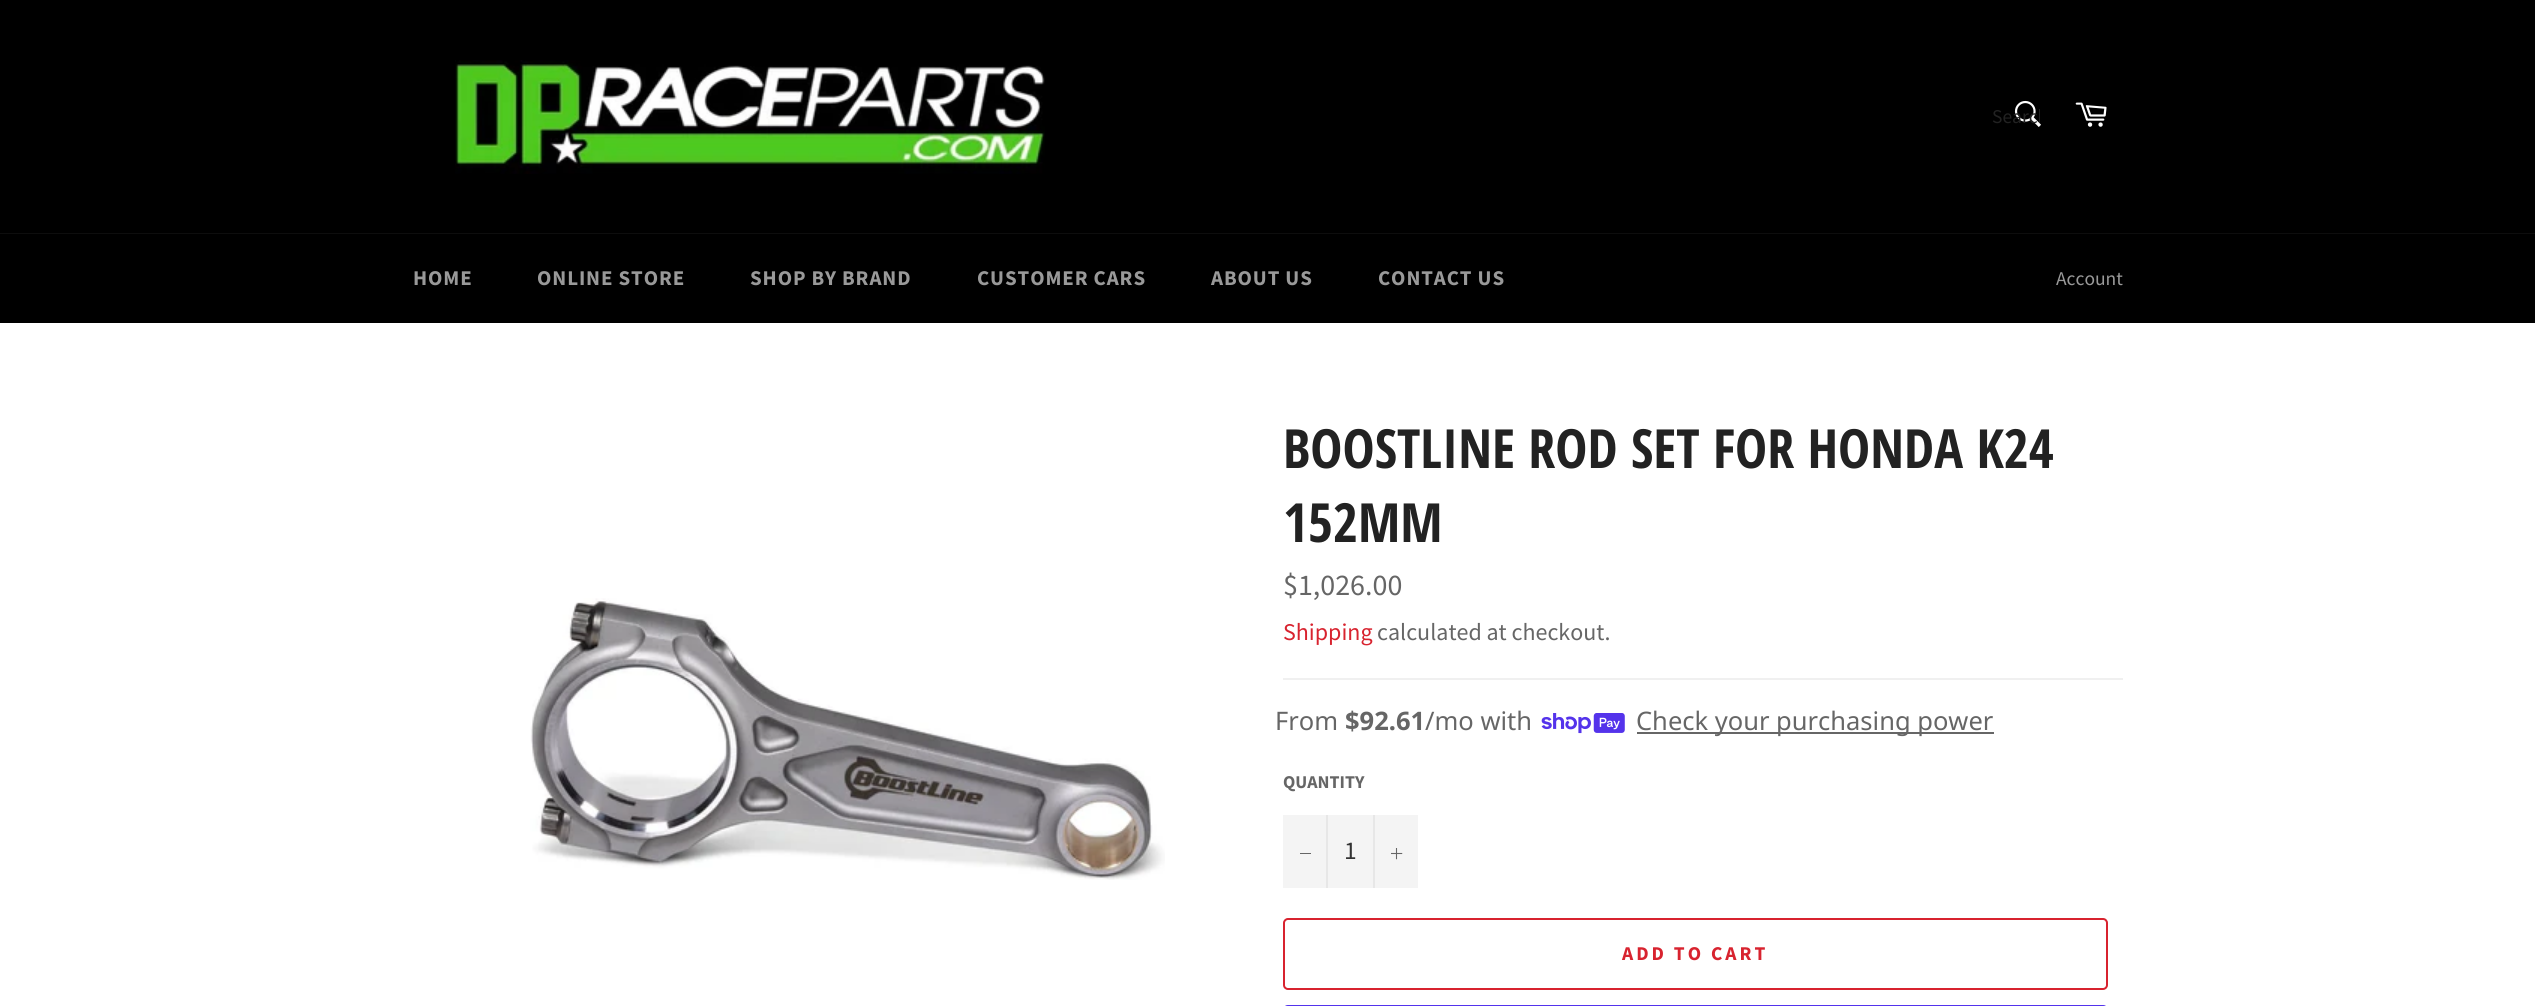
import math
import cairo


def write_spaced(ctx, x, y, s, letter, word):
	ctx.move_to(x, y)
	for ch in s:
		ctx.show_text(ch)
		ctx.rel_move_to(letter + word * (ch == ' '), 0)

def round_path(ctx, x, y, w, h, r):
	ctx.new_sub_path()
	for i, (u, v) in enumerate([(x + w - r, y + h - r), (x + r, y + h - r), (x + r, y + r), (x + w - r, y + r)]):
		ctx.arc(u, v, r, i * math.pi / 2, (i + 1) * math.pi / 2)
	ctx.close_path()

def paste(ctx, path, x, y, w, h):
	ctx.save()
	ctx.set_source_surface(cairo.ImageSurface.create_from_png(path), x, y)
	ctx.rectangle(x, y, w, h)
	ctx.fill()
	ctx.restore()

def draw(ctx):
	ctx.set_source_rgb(0, 0, 0)
	ctx.paint()
	paste(ctx, 'media/1.png', 455, 60, 590, 114)
	paste(ctx, 'media/2.png', 2014, 100, 27, 27)
	ctx.save()
	ctx.rectangle(1992, 104, 48, 25)
	ctx.clip()
	ctx.select_font_face('Source Sans Pro')
	ctx.set_font_size(19.5)
	ctx.set_source_rgb(0.133, 0.133, 0.133)
	ctx.move_to(1992, 123)
	ctx.show_text('Search')
	ctx.restore()
	paste(ctx, 'media/3.png', 2075, 102, 32, 25)
	ctx.set_source_rgb(0.051, 0.051, 0.051)
	ctx.rectangle(0, 233, 2535, 1)
	ctx.fill()
	ctx.select_font_face('Source Sans Pro', cairo.FONT_SLANT_NORMAL, cairo.FONT_WEIGHT_BOLD)
	ctx.set_font_size(21)
	ctx.set_source_rgb(0.6, 0.6, 0.6)
	for x, y, s in [
		(413, 285, 'HOME'),
		(537, 285, 'ONLINE STORE'),
		(750, 285, 'SHOP BY BRAND'),
		(977, 285, 'CUSTOMER CARS'),
		(1211, 285, 'ABOUT US'),
		(1378, 285, 'CONTACT US'),
	]:
		write_spaced(ctx, x, y, s, 0.9, 0)
	ctx.select_font_face('Source Sans Pro')
	ctx.set_font_size(19.5)
	ctx.move_to(2056, 285)
	ctx.show_text('Account')
	ctx.set_source_rgb(1, 1, 1)
	ctx.rectangle(0, 323, 2535, 683)
	ctx.fill()
	paste(ctx, 'media/4.png', 530, 598, 635, 282)
	ctx.select_font_face('Open Sans Condensed', cairo.FONT_SLANT_NORMAL, cairo.FONT_WEIGHT_BOLD)
	ctx.set_font_size(54)
	ctx.set_source_rgb(0.133, 0.133, 0.133)
	ctx.move_to(1283, 468)
	ctx.show_text('BOOSTLINE ROD SET FOR HONDA K24')
	ctx.move_to(1283, 542)
	ctx.show_text('152MM')
	ctx.select_font_face('Source Sans Pro')
	ctx.set_font_size(30)
	ctx.set_source_rgb(0.4, 0.4, 0.4)
	ctx.move_to(1283, 595)
	ctx.show_text('$1,026.00')
	ctx.set_font_size(24)
	ctx.set_source_rgb(0.847, 0.137, 0.184)
	ctx.move_to(1283, 640)
	ctx.show_text('Shipping')
	ctx.set_source_rgb(0.4, 0.4, 0.4)
	ctx.move_to(1377, 640)
	ctx.show_text('calculated at checkout.')
	ctx.set_source_rgb(0.941, 0.941, 0.941)
	ctx.rectangle(1283, 678, 840, 2)
	ctx.fill()
	ctx.select_font_face('Noto Sans')
	ctx.set_font_size(25.5)
	ctx.set_source_rgb(0.4, 0.4, 0.4)
	ctx.move_to(1275, 730)
	ctx.show_text('From')
	ctx.select_font_face('Noto Sans', cairo.FONT_SLANT_NORMAL, cairo.FONT_WEIGHT_BOLD)
	ctx.move_to(1345, 730)
	ctx.show_text('$92.61')
	ctx.select_font_face('Noto Sans')
	ctx.move_to(1425, 730)
	ctx.show_text('/mo with')
	paste(ctx, 'media/5.png', 1541, 713, 84, 21)
	ctx.rectangle(1637, 732, 357, 2)
	ctx.fill()
	ctx.move_to(1636, 730)
	ctx.show_text('Check your purchasing power')
	ctx.select_font_face('Source Sans Pro', cairo.FONT_SLANT_NORMAL, cairo.FONT_WEIGHT_BOLD)
	ctx.set_font_size(18)
	ctx.move_to(1283, 788)
	ctx.show_text('QUANTITY')
	ctx.set_source_rgb(0.957, 0.957, 0.957)
	ctx.rectangle(1283, 815, 135, 73)
	ctx.fill()
	ctx.set_source_rgb(0.906, 0.906, 0.906)
	ctx.rectangle(1326, 815, 2, 73)
	ctx.fill()
	ctx.set_source_rgb(0.4, 0.4, 0.4)
	ctx.rectangle(1300, 853, 11, 1)
	ctx.fill()
	ctx.select_font_face('Source Sans Pro')
	ctx.set_font_size(25.5)
	ctx.set_source_rgb(0.2, 0.2, 0.2)
	ctx.move_to(1344, 859)
	ctx.show_text('1')
	ctx.set_source_rgb(0.906, 0.906, 0.906)
	ctx.rectangle(1373, 815, 2, 73)
	ctx.fill()
	paste(ctx, 'media/6.png', 1391, 848, 12, 12)
	round_path(ctx, 1284, 919, 823, 70, 4)
	ctx.set_source_rgb(0.847, 0.137, 0.184)
	ctx.stroke()
	ctx.select_font_face('Source Sans Pro', cairo.FONT_SLANT_NORMAL, cairo.FONT_WEIGHT_BOLD)
	ctx.set_font_size(19.5)
	write_spaced(ctx, 1622, 960, 'ADD TO CART', 3, 0)
	ctx.set_source_rgb(0.329, 0.2, 0.922)
	round_path(ctx, 1283, 1005, 825, 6, 5)
	ctx.fill()


surface = cairo.ImageSurface(cairo.FORMAT_RGB24, 2535, 1006)
ctx = cairo.Context(surface)
options = cairo.FontOptions()
options.set_hint_metrics(cairo.HINT_METRICS_OFF)
options.set_hint_style(cairo.HINT_STYLE_NONE)
ctx.set_font_options(options)
ctx.set_miter_limit(4)
draw(ctx)
surface.write_to_png('image.png')
